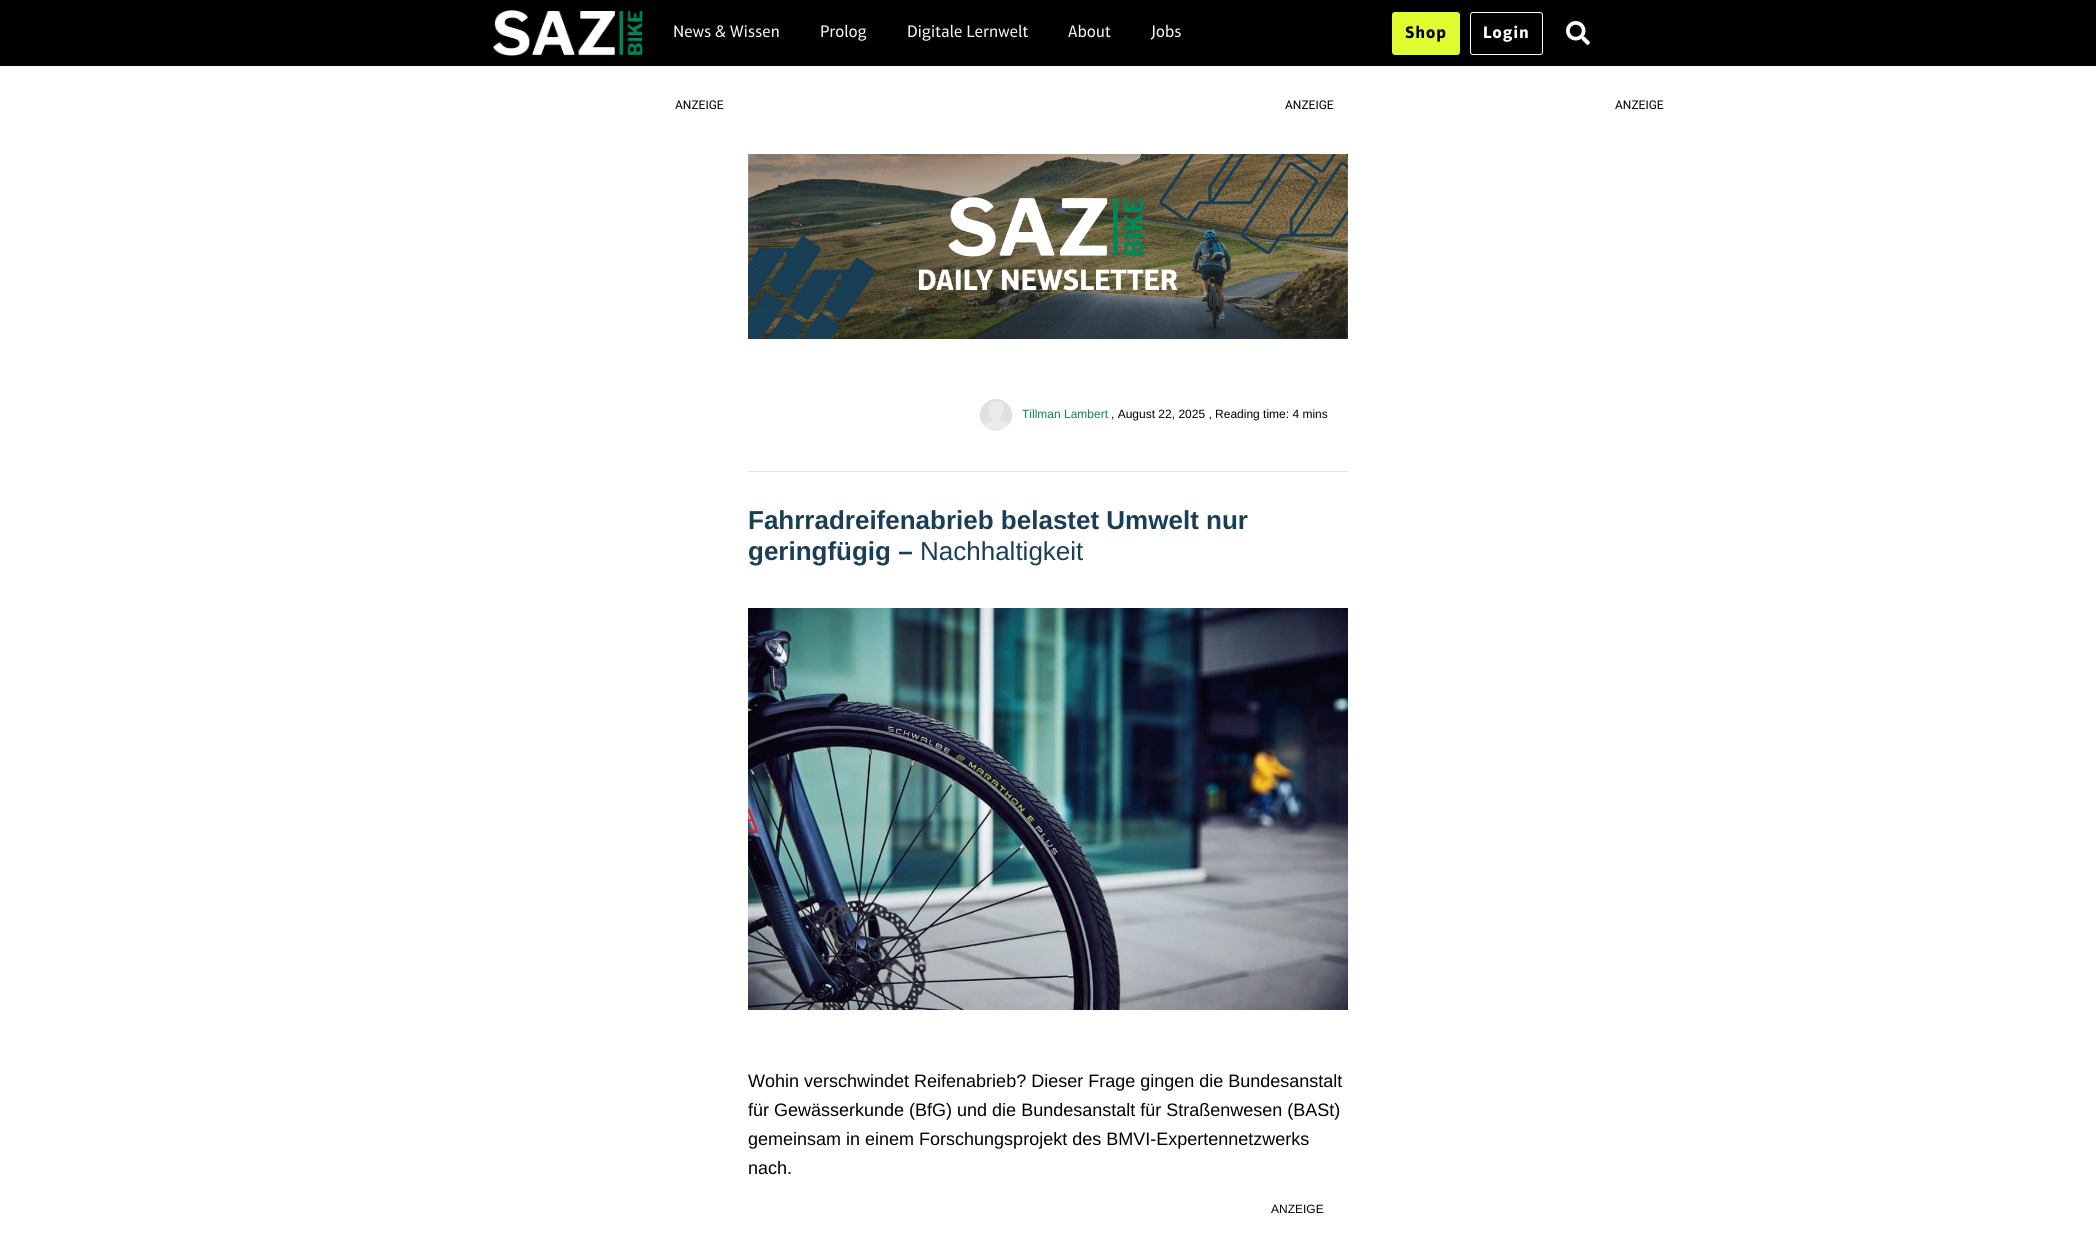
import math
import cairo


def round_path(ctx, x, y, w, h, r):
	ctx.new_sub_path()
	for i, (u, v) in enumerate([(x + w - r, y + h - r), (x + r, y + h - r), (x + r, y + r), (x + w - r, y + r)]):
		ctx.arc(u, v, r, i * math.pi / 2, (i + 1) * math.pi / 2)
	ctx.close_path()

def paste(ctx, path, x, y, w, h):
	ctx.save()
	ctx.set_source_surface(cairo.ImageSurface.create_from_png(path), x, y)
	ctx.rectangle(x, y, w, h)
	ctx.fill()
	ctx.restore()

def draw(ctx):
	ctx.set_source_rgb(1, 1, 1)
	ctx.paint()
	ctx.set_source_rgb(0, 0, 0)
	ctx.rectangle(0, 0, 2096, 66)
	ctx.fill()
	paste(ctx, 'media/1.png', 493, 10, 150, 46)
	paste(ctx, 'media/2.png', 674, 25, 105, 13)
	paste(ctx, 'media/3.png', 821, 24, 46, 17)
	paste(ctx, 'media/4.png', 908, 24, 121, 17)
	paste(ctx, 'media/5.png', 1068, 24, 43, 14)
	paste(ctx, 'media/6.png', 1150, 24, 31, 16)
	ctx.set_source_rgb(0.875, 0.992, 0.192)
	round_path(ctx, 1392.5, 12.5, 67, 42, 2.5)
	ctx.fill_preserve()
	ctx.set_line_width(1)
	ctx.stroke()
	paste(ctx, 'media/7.png', 1405, 25, 41, 17)
	round_path(ctx, 1470.5, 12.5, 72, 42, 2.5)
	ctx.set_source_rgb(1, 1, 1)
	ctx.stroke()
	paste(ctx, 'media/8.png', 1484, 25, 44, 17)
	paste(ctx, 'media/9.png', 1566, 21, 24, 24)
	ctx.select_font_face('Roboto')
	ctx.set_font_size(12)
	ctx.set_source_rgb(0, 0, 0)
	for x, y, s in [
		(675, 109, 'ANZEIGE'),
		(1285, 109, 'ANZEIGE'),
		(1615, 109, 'ANZEIGE'),
	]:
		ctx.move_to(x, y)
		ctx.show_text(s)
	paste(ctx, 'media/10.png', 748, 154, 600, 185)
	paste(ctx, 'media/11.png', 980, 399, 32, 32)
	ctx.select_font_face('Liberation Sans')
	ctx.set_source_rgb(0.043, 0.514, 0.349)
	ctx.move_to(1022, 418)
	ctx.show_text('Tillman Lambert')
	ctx.set_source_rgb(0, 0, 0)
	ctx.move_to(1111, 418)
	ctx.show_text(', August 22, 2025 , Reading time: 4 mins')
	ctx.set_source_rgb(0.886, 0.886, 0.886)
	ctx.rectangle(748, 471, 600, 1)
	ctx.fill()
	ctx.select_font_face('Liberation Sans', cairo.FONT_SLANT_NORMAL, cairo.FONT_WEIGHT_BOLD)
	ctx.set_font_size(26)
	ctx.set_source_rgb(0.098, 0.247, 0.337)
	ctx.move_to(748, 529)
	ctx.show_text('Fahrradreifenabrieb belastet Umwelt nur')
	ctx.move_to(748, 560)
	ctx.show_text('geringfügig –')
	ctx.select_font_face('Liberation Sans')
	ctx.move_to(920, 560)
	ctx.show_text('Nachhaltigkeit')
	paste(ctx, 'media/12.png', 748, 608, 600, 402)
	ctx.set_font_size(18)
	ctx.set_source_rgb(0, 0, 0)
	for x, y, s in [
		(748, 1087, 'Wohin verschwindet Reifenabrieb? Dieser Frage gingen die Bundesanstalt'),
		(748, 1116, 'für Gewässerkunde (BfG) und die Bundesanstalt für Straßenwesen (BASt)'),
		(748, 1145, 'gemeinsam in einem Forschungsprojekt des BMVI-Expertennetzwerks'),
		(748, 1174, 'nach.'),
	]:
		ctx.move_to(x, y)
		ctx.show_text(s)
	ctx.set_font_size(12)
	ctx.move_to(1271, 1213)
	ctx.show_text('ANZEIGE')


surface = cairo.ImageSurface(cairo.FORMAT_RGB24, 2096, 1253)
ctx = cairo.Context(surface)
options = cairo.FontOptions()
options.set_hint_metrics(cairo.HINT_METRICS_OFF)
options.set_hint_style(cairo.HINT_STYLE_NONE)
ctx.set_font_options(options)
ctx.set_miter_limit(4)
draw(ctx)
surface.write_to_png('image.png')
